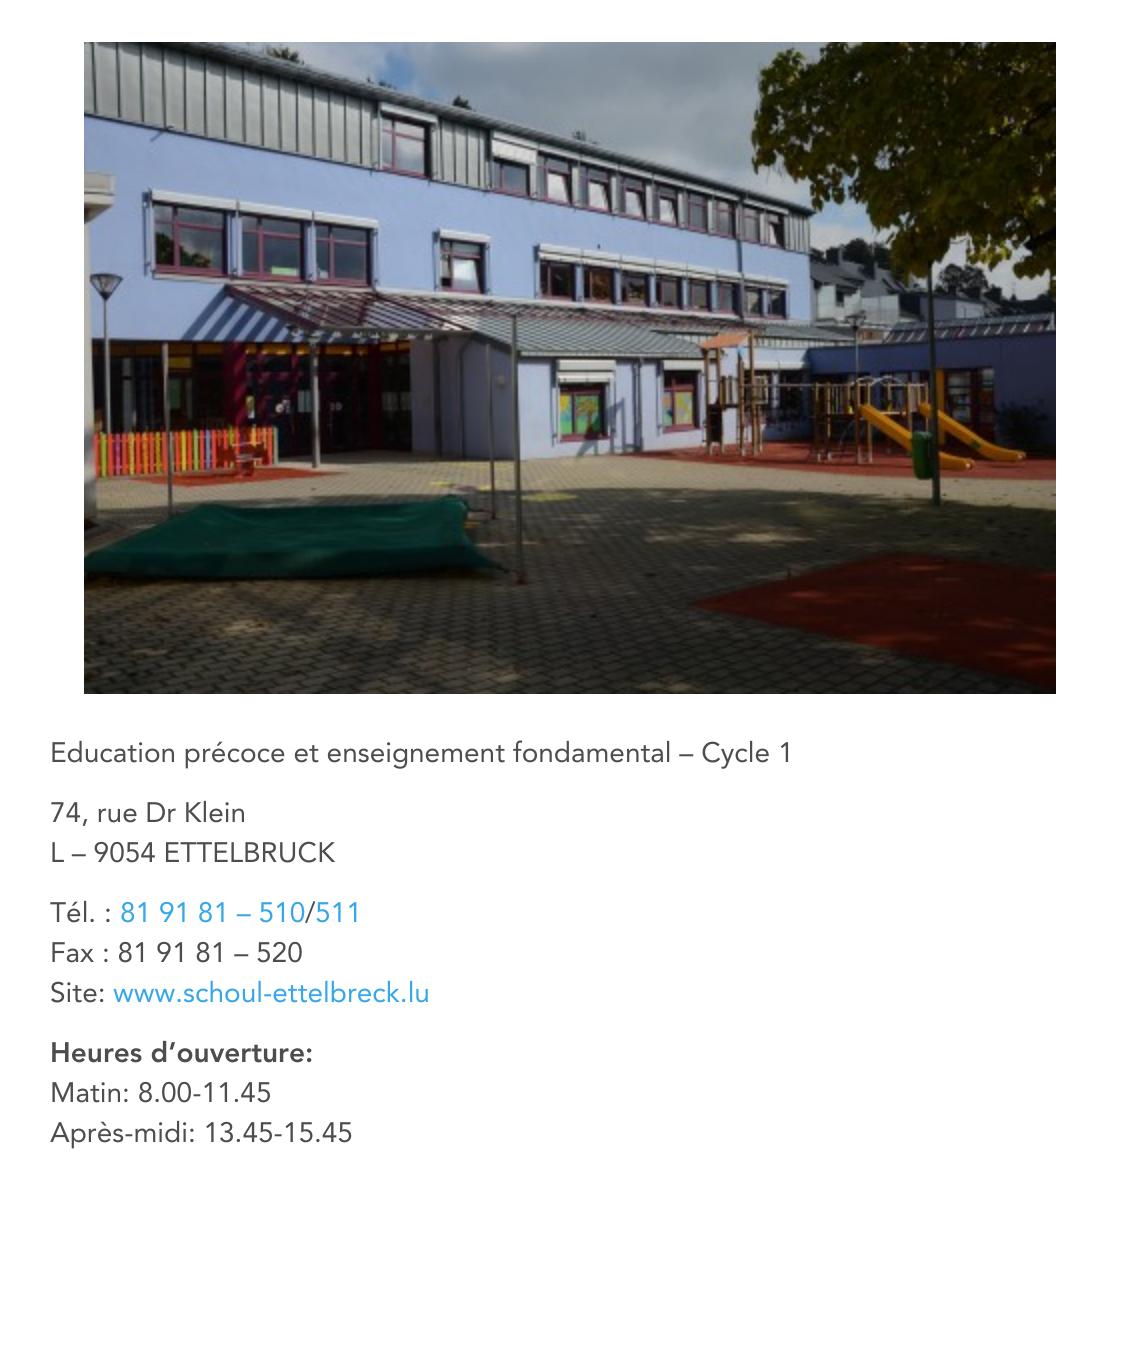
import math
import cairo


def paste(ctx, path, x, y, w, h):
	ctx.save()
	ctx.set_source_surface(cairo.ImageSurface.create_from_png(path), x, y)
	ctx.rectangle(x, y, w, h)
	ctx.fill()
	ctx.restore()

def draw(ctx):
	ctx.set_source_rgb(1, 1, 1)
	ctx.paint()
	paste(ctx, 'media/1.png', 84, 42, 972, 652)
	ctx.select_font_face('Avenir')
	ctx.set_font_size(28)
	ctx.set_source_rgb(0.302, 0.302, 0.302)
	for x, y, s in [
		(50, 762, 'Education précoce et enseignement fondamental – Cycle 1'),
		(50, 822, '74, rue Dr Klein'),
		(50, 862, 'L – 9054 ETTELBRUCK'),
		(50, 922, 'Tél. :'),
	]:
		ctx.move_to(x, y)
		ctx.show_text(s)
	ctx.set_source_rgb(0.212, 0.655, 0.91)
	ctx.move_to(120, 922)
	ctx.show_text('81 91 81 – 510')
	ctx.set_source_rgb(0.302, 0.302, 0.302)
	ctx.move_to(305, 922)
	ctx.show_text('/')
	ctx.set_source_rgb(0.212, 0.655, 0.91)
	ctx.move_to(315, 922)
	ctx.show_text('511')
	ctx.set_source_rgb(0.302, 0.302, 0.302)
	ctx.move_to(50, 962)
	ctx.show_text('Fax : 81 91 81 – 520')
	ctx.move_to(50, 1002)
	ctx.show_text('Site:')
	ctx.set_source_rgb(0.212, 0.655, 0.91)
	ctx.move_to(113, 1002)
	ctx.show_text('www.schoul-ettelbreck.lu')
	ctx.select_font_face('Avenir Black')
	ctx.set_source_rgb(0.302, 0.302, 0.302)
	ctx.move_to(50, 1062)
	ctx.show_text('Heures d’ouverture:')
	ctx.select_font_face('Avenir')
	ctx.move_to(50, 1102)
	ctx.show_text('Matin: 8.00-11.45')
	ctx.move_to(50, 1142)
	ctx.show_text('Après-midi: 13.45-15.45')


surface = cairo.ImageSurface(cairo.FORMAT_RGB24, 1140, 1364)
ctx = cairo.Context(surface)
options = cairo.FontOptions()
options.set_hint_metrics(cairo.HINT_METRICS_OFF)
options.set_hint_style(cairo.HINT_STYLE_NONE)
ctx.set_font_options(options)
ctx.set_miter_limit(4)
draw(ctx)
surface.write_to_png('image.png')
